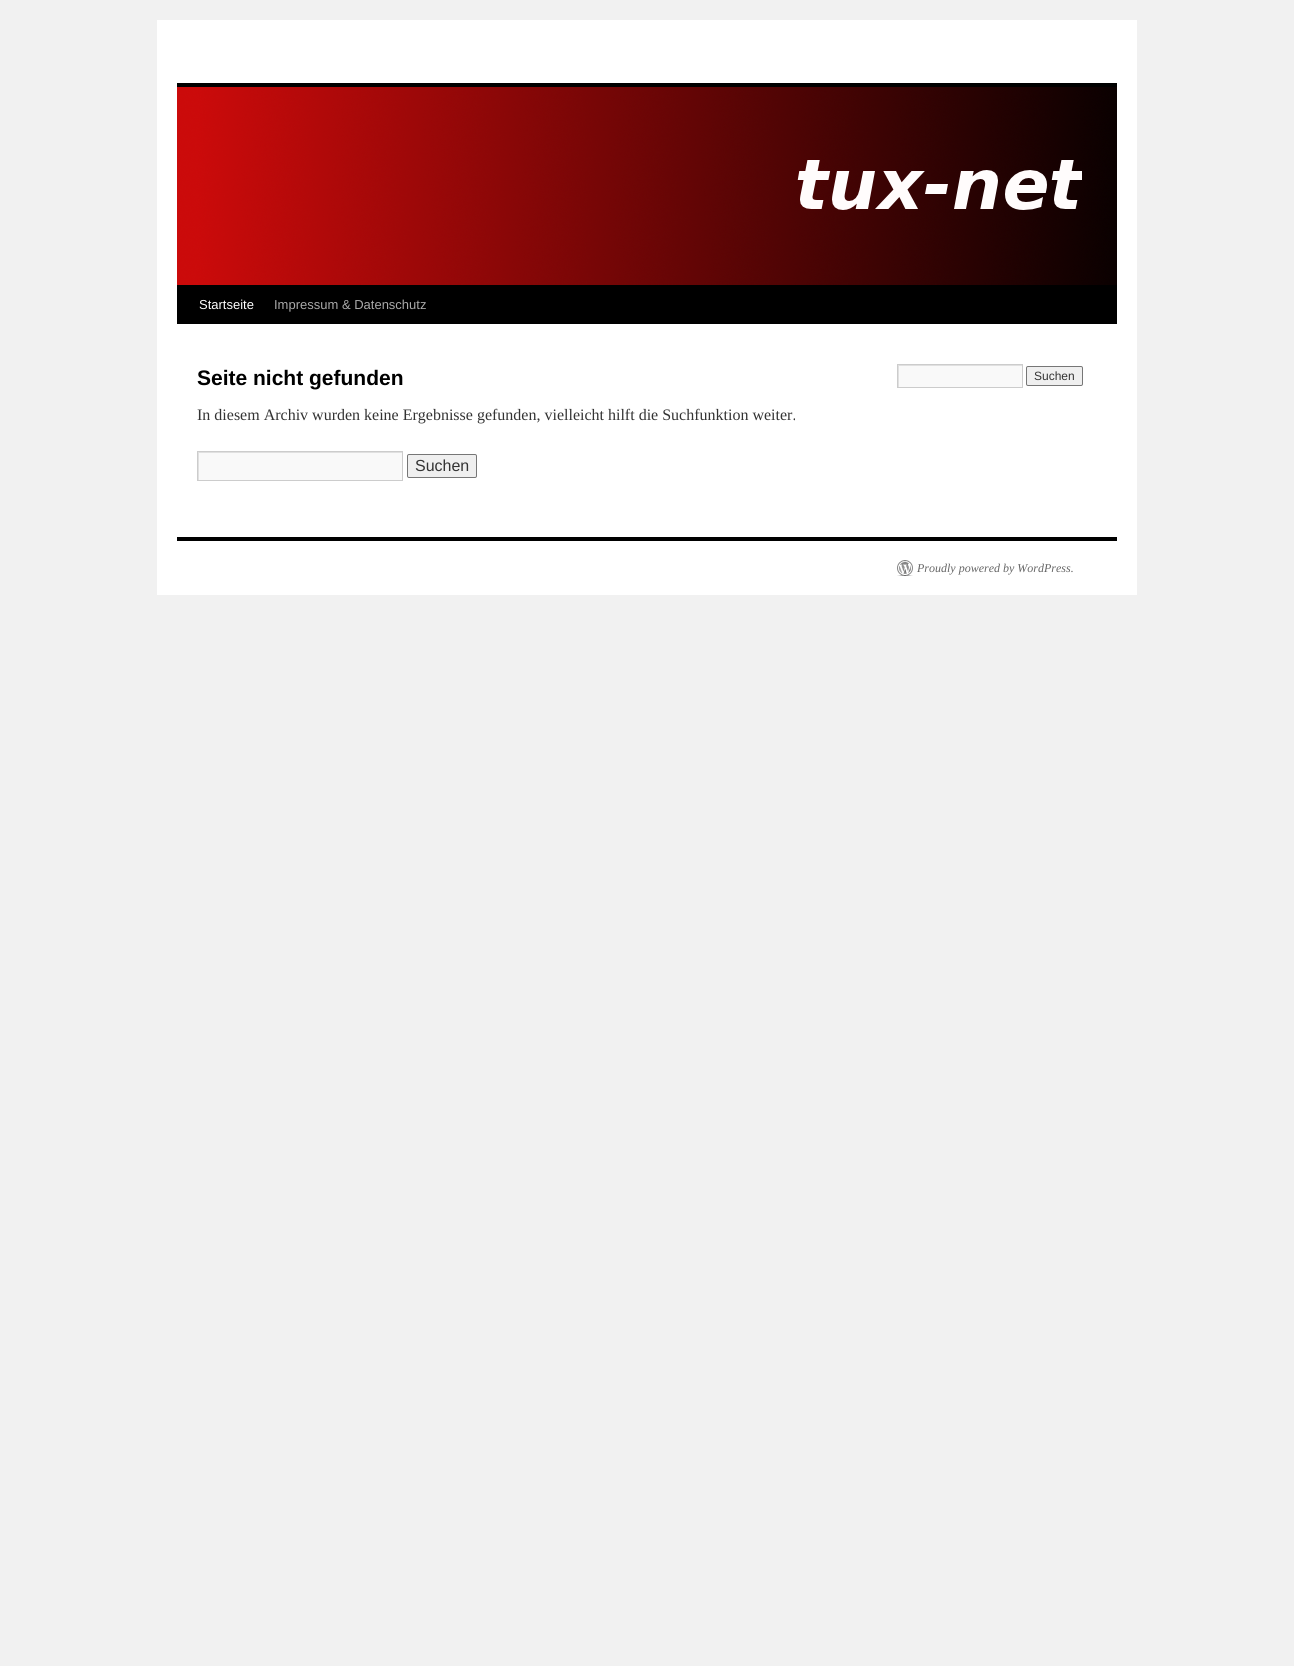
import math
import cairo


def round_path(ctx, x, y, w, h, r):
	ctx.new_sub_path()
	for i, (u, v) in enumerate([(x + w - r, y + h - r), (x + r, y + h - r), (x + r, y + r), (x + w - r, y + r)]):
		ctx.arc(u, v, r, i * math.pi / 2, (i + 1) * math.pi / 2)
	ctx.close_path()

def paste(ctx, path, x, y, w, h):
	ctx.save()
	ctx.set_source_surface(cairo.ImageSurface.create_from_png(path), x, y)
	ctx.rectangle(x, y, w, h)
	ctx.fill()
	ctx.restore()

def draw(ctx):
	ctx.set_source_rgb(0.945, 0.945, 0.945)
	ctx.paint()
	ctx.set_source_rgb(1, 1, 1)
	ctx.rectangle(157, 20, 980, 575)
	ctx.fill()
	ctx.set_source_rgb(0, 0, 0)
	ctx.rectangle(177, 83, 940, 4)
	ctx.rectangle(177, 285, 940, 39)
	ctx.fill()
	paste(ctx, 'media/1.png', 177, 87, 940, 198)
	ctx.select_font_face('Liberation Sans')
	ctx.set_font_size(13)
	ctx.set_source_rgb(1, 1, 1)
	ctx.move_to(199, 309)
	ctx.show_text('Startseite')
	ctx.set_source_rgb(0.667, 0.667, 0.667)
	ctx.move_to(274, 309)
	ctx.show_text('Impressum & Datenschutz')
	ctx.select_font_face('Liberation Sans', cairo.FONT_SLANT_NORMAL, cairo.FONT_WEIGHT_BOLD)
	ctx.set_font_size(21)
	ctx.set_source_rgb(0, 0, 0)
	ctx.move_to(197, 385)
	ctx.show_text('Seite nicht gefunden')
	ctx.select_font_face('Liberation Serif')
	ctx.set_font_size(16)
	ctx.set_source_rgb(0.2, 0.2, 0.2)
	ctx.move_to(197, 420)
	ctx.show_text('In diesem Archiv wurden keine Ergebnisse gefunden, vielleicht hilft die Suchfunktion weiter.')
	ctx.set_source_rgb(0.976, 0.976, 0.976)
	ctx.rectangle(199, 453, 203, 27)
	ctx.fill()
	ctx.save()
	ctx.rectangle(198, 452, 204, 28)
	ctx.clip()
	ctx.set_source_rgb(0.878, 0.878, 0.878)
	ctx.set_fill_rule(cairo.FILL_RULE_EVEN_ODD)
	ctx.new_path()
	ctx.move_to(99, 353)
	ctx.line_to(501, 353)
	ctx.line_to(501, 579)
	ctx.line_to(99, 579)
	ctx.close_path()
	ctx.move_to(199, 453)
	ctx.line_to(403, 453)
	ctx.line_to(403, 481)
	ctx.line_to(199, 481)
	ctx.close_path()
	ctx.fill()
	ctx.restore()
	ctx.rectangle(197.5, 451.5, 205, 29)
	ctx.set_source_rgb(0.8, 0.8, 0.8)
	ctx.set_line_width(1)
	ctx.stroke()
	ctx.set_source_rgb(0.937, 0.937, 0.937)
	round_path(ctx, 407.5, 454.5, 69, 23, 1.5)
	ctx.fill_preserve()
	ctx.set_source_rgb(0.463, 0.463, 0.463)
	ctx.stroke()
	ctx.select_font_face('Liberation Sans')
	ctx.set_source_rgb(0.2, 0.2, 0.2)
	ctx.move_to(415, 471)
	ctx.show_text('Suchen')
	ctx.set_source_rgb(0.976, 0.976, 0.976)
	ctx.rectangle(899, 366, 123, 21)
	ctx.fill()
	ctx.save()
	ctx.rectangle(898, 365, 124, 22)
	ctx.clip()
	ctx.set_source_rgb(0.878, 0.878, 0.878)
	ctx.set_fill_rule(cairo.FILL_RULE_EVEN_ODD)
	ctx.new_path()
	ctx.move_to(799, 266)
	ctx.line_to(1121, 266)
	ctx.line_to(1121, 486)
	ctx.line_to(799, 486)
	ctx.close_path()
	ctx.move_to(899, 366)
	ctx.line_to(1023, 366)
	ctx.line_to(1023, 388)
	ctx.line_to(899, 388)
	ctx.close_path()
	ctx.fill()
	ctx.restore()
	ctx.rectangle(897.5, 364.5, 125, 23)
	ctx.set_source_rgb(0.8, 0.8, 0.8)
	ctx.stroke()
	ctx.set_source_rgb(0.937, 0.937, 0.937)
	round_path(ctx, 1026.5, 366.5, 56, 19, 1.5)
	ctx.fill_preserve()
	ctx.set_source_rgb(0.463, 0.463, 0.463)
	ctx.stroke()
	ctx.set_font_size(12)
	ctx.set_source_rgb(0.2, 0.2, 0.2)
	ctx.move_to(1034, 380)
	ctx.show_text('Suchen')
	ctx.set_source_rgb(0, 0, 0)
	ctx.rectangle(177, 537, 940, 4)
	ctx.fill()
	paste(ctx, 'media/2.png', 897, 560, 16, 16)
	ctx.select_font_face('Liberation Serif', cairo.FONT_SLANT_ITALIC)
	ctx.set_source_rgb(0.4, 0.4, 0.4)
	ctx.move_to(917, 572)
	ctx.show_text('Proudly powered by WordPress.')


surface = cairo.ImageSurface(cairo.FORMAT_RGB24, 1294, 1666)
ctx = cairo.Context(surface)
options = cairo.FontOptions()
options.set_hint_metrics(cairo.HINT_METRICS_OFF)
options.set_hint_style(cairo.HINT_STYLE_NONE)
ctx.set_font_options(options)
ctx.set_miter_limit(4)
draw(ctx)
surface.write_to_png('image.png')
